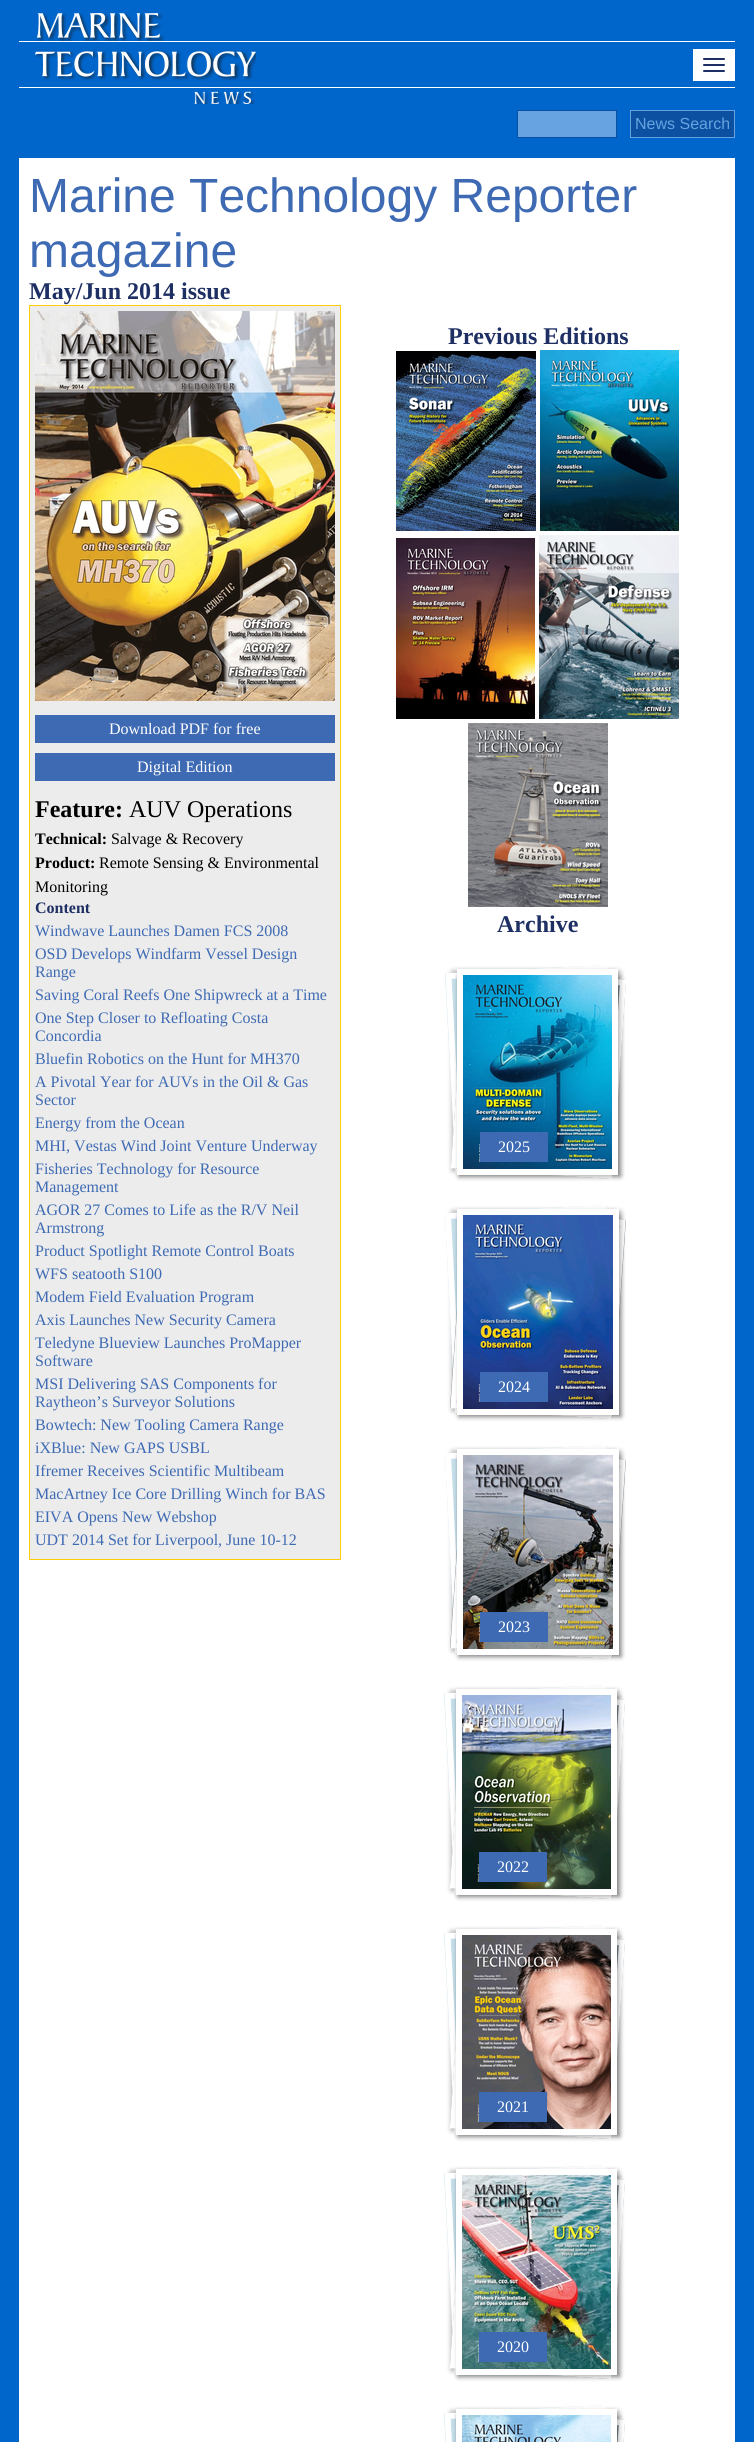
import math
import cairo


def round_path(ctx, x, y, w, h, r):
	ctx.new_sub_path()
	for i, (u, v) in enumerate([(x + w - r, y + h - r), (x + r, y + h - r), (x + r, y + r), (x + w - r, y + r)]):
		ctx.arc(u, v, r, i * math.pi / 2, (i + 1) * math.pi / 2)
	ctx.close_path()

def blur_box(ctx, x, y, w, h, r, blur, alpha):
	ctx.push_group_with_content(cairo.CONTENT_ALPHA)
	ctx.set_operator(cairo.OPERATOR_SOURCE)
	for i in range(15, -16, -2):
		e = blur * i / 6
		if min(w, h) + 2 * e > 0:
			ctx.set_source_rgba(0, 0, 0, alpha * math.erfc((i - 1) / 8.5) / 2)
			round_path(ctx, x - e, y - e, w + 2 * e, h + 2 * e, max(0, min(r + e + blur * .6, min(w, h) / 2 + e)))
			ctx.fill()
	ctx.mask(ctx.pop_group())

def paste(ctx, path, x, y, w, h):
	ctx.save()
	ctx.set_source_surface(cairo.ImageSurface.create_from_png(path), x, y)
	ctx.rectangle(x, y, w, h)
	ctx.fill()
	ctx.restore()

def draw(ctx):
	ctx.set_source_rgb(0, 0.4, 0.8)
	ctx.paint()
	paste(ctx, 'media/1.png', 19, 13, 716, 91)
	ctx.set_source_rgb(1, 1, 1)
	ctx.rectangle(693, 49, 42, 32)
	ctx.fill()
	ctx.set_source_rgb(0.118, 0.184, 0.388)
	round_path(ctx, 703, 58, 22, 2, 1)
	ctx.fill()
	round_path(ctx, 703, 64, 22, 2, 1)
	ctx.fill()
	round_path(ctx, 703, 70, 22, 2, 1)
	ctx.fill()
	ctx.set_source_rgb(0.4, 0.639, 0.878)
	ctx.rectangle(517.5, 110.5, 99, 27)
	ctx.fill_preserve()
	ctx.set_source_rgb(0.047, 0.314, 0.635)
	ctx.set_line_width(1)
	ctx.stroke()
	ctx.rectangle(630.5, 110.5, 104, 27)
	ctx.fill_preserve()
	ctx.set_source_rgb(0.4, 0.639, 0.878)
	ctx.stroke()
	ctx.select_font_face('Liberation Sans')
	ctx.set_font_size(16)
	ctx.move_to(635, 129)
	ctx.show_text('News Search')
	ctx.set_source_rgb(1, 1, 1)
	ctx.rectangle(19, 158, 716, 2284)
	ctx.fill()
	ctx.set_font_size(48)
	ctx.set_source_rgb(0.243, 0.416, 0.702)
	ctx.move_to(29, 212)
	ctx.show_text('Marine Technology Reporter')
	ctx.move_to(29, 267)
	ctx.show_text('magazine')
	ctx.select_font_face('Liberation Serif', cairo.FONT_SLANT_NORMAL, cairo.FONT_WEIGHT_BOLD)
	ctx.set_font_size(24)
	ctx.set_source_rgb(0.118, 0.184, 0.388)
	ctx.move_to(29, 299)
	ctx.show_text('May/Jun 2014 issue')
	ctx.move_to(448, 344)
	ctx.show_text('Previous Editions')
	paste(ctx, 'media/2.png', 396, 351, 140, 180)
	paste(ctx, 'media/3.png', 540, 350, 139, 181)
	paste(ctx, 'media/4.png', 396, 538, 139, 181)
	paste(ctx, 'media/5.png', 539, 535, 140, 184)
	paste(ctx, 'media/6.png', 468, 723, 140, 184)
	ctx.set_source_rgb(0.922, 0.922, 0.922)
	ctx.rectangle(29.5, 305.5, 311, 1254)
	ctx.fill_preserve()
	ctx.set_source_rgb(1, 0.8, 0.024)
	ctx.stroke()
	paste(ctx, 'media/7.png', 35, 311, 300, 390)
	ctx.set_source_rgb(0.243, 0.416, 0.702)
	ctx.rectangle(35, 715, 300, 28)
	ctx.fill()
	ctx.select_font_face('Liberation Serif')
	ctx.set_font_size(16)
	ctx.set_source_rgb(1, 1, 1)
	ctx.move_to(109, 734)
	ctx.show_text('Download PDF for free')
	ctx.set_source_rgb(0.243, 0.416, 0.702)
	ctx.rectangle(35, 753, 300, 28)
	ctx.fill()
	ctx.set_source_rgb(1, 1, 1)
	ctx.move_to(137, 772)
	ctx.show_text('Digital Edition')
	ctx.select_font_face('Liberation Serif', cairo.FONT_SLANT_NORMAL, cairo.FONT_WEIGHT_BOLD)
	ctx.set_font_size(24)
	ctx.set_source_rgb(0, 0, 0)
	ctx.move_to(35, 817)
	ctx.show_text('Feature:')
	ctx.select_font_face('Liberation Serif')
	ctx.move_to(129, 817)
	ctx.show_text('AUV Operations')
	ctx.select_font_face('Liberation Serif', cairo.FONT_SLANT_NORMAL, cairo.FONT_WEIGHT_BOLD)
	ctx.set_font_size(16)
	ctx.move_to(35, 844)
	ctx.show_text('Technical:')
	ctx.select_font_face('Liberation Serif')
	ctx.move_to(111, 844)
	ctx.show_text('Salvage & Recovery')
	ctx.select_font_face('Liberation Serif', cairo.FONT_SLANT_NORMAL, cairo.FONT_WEIGHT_BOLD)
	ctx.move_to(35, 868)
	ctx.show_text('Product:')
	ctx.select_font_face('Liberation Serif')
	ctx.move_to(99, 868)
	ctx.show_text('Remote Sensing & Environmental')
	ctx.move_to(35, 892)
	ctx.show_text('Monitoring')
	ctx.select_font_face('Liberation Serif', cairo.FONT_SLANT_NORMAL, cairo.FONT_WEIGHT_BOLD)
	ctx.set_source_rgb(0.118, 0.184, 0.388)
	ctx.move_to(35, 913)
	ctx.show_text('Content')
	ctx.select_font_face('Liberation Serif')
	ctx.set_source_rgb(0.243, 0.416, 0.702)
	for x, y, s in [
		(35, 936, 'Windwave Launches Damen FCS 2008'),
		(35, 959, 'OSD Develops Windfarm Vessel Design'),
		(35, 977, 'Range'),
		(35, 1000, 'Saving Coral Reefs One Shipwreck at a Time'),
		(35, 1023, 'One Step Closer to Refloating Costa'),
		(35, 1041, 'Concordia'),
		(35, 1064, 'Bluefin Robotics on the Hunt for MH370'),
		(35, 1087, 'A Pivotal Year for AUVs in the Oil & Gas'),
		(35, 1105, 'Sector'),
		(35, 1128, 'Energy from the Ocean'),
		(35, 1151, 'MHI, Vestas Wind Joint Venture Underway'),
		(35, 1174, 'Fisheries Technology for Resource'),
		(35, 1192, 'Management'),
		(35, 1215, 'AGOR 27 Comes to Life as the R/V Neil'),
		(35, 1233, 'Armstrong'),
		(35, 1256, 'Product Spotlight Remote Control Boats'),
		(35, 1279, 'WFS seatooth S100'),
		(35, 1302, 'Modem Field Evaluation Program'),
		(35, 1325, 'Axis Launches New Security Camera'),
		(35, 1348, 'Teledyne Blueview Launches ProMapper'),
		(35, 1366, 'Software'),
		(35, 1389, 'MSI Delivering SAS Components for'),
		(35, 1407, 'Raytheon’s Surveyor Solutions'),
		(35, 1430, 'Bowtech: New Tooling Camera Range'),
		(35, 1453, 'iXBlue: New GAPS USBL'),
		(35, 1476, 'Ifremer Receives Scientific Multibeam'),
		(35, 1499, 'MacArtney Ice Core Drilling Winch for BAS'),
		(35, 1522, 'EIVA Opens New Webshop'),
		(35, 1545, 'UDT 2014 Set for Liverpool, June 10-12'),
	]:
		ctx.move_to(x, y)
		ctx.show_text(s)
	ctx.select_font_face('Liberation Serif', cairo.FONT_SLANT_NORMAL, cairo.FONT_WEIGHT_BOLD)
	ctx.set_font_size(24)
	ctx.set_source_rgb(0.118, 0.184, 0.388)
	ctx.move_to(497, 932)
	ctx.show_text('Archive')
	ctx.save()
	ctx.set_fill_rule(cairo.FILL_RULE_EVEN_ODD)
	ctx.new_path()
	ctx.move_to(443, 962)
	ctx.line_to(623, 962)
	ctx.line_to(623, 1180)
	ctx.line_to(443, 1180)
	ctx.close_path()
	ctx.move_to(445.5, 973.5)
	ctx.line_to(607, 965)
	ctx.line_to(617.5, 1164.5)
	ctx.line_to(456, 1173)
	ctx.close_path()
	ctx.clip()
	ctx.set_source_rgb(0, 0, 0)
	blur_box(ctx, 452, 971, 162, 200, 0, 2.5, 0.3)
	ctx.restore()
	ctx.set_source_rgba(0.384, 0.647, 0.761, 0.37)
	ctx.new_path()
	ctx.move_to(445, 973)
	ctx.line_to(607, 965)
	ctx.line_to(618, 1165)
	ctx.line_to(456, 1173)
	ctx.close_path()
	ctx.fill()
	ctx.new_path()
	ctx.move_to(448.5, 976)
	ctx.line_to(604.5, 968)
	ctx.line_to(614.5, 1162)
	ctx.line_to(458.5, 1170)
	ctx.close_path()
	ctx.set_source_rgb(1, 1, 1)
	ctx.set_line_width(6)
	ctx.stroke()
	ctx.set_source_rgb(0, 0, 0)
	blur_box(ctx, 459, 976, 162, 200, 0, 2.5, 0.3)
	ctx.set_source_rgb(0.463, 0.522, 0.565)
	ctx.new_path()
	ctx.move_to(465, 969)
	ctx.line_to(626, 980)
	ctx.line_to(612, 1179)
	ctx.line_to(451, 1168)
	ctx.close_path()
	ctx.fill()
	ctx.new_path()
	ctx.move_to(467.5, 972)
	ctx.line_to(623, 982.5)
	ctx.line_to(609.5, 1176)
	ctx.line_to(454, 1165.5)
	ctx.close_path()
	ctx.set_source_rgb(1, 1, 1)
	ctx.stroke()
	ctx.set_source_rgb(0, 0, 0)
	blur_box(ctx, 459, 971, 161, 206, 0, 2.5, 0.3)
	ctx.rectangle(460, 972, 155, 200)
	ctx.set_source_rgb(1, 1, 1)
	ctx.stroke()
	paste(ctx, 'media/8.png', 463, 975, 149, 194)
	ctx.set_source_rgb(0.243, 0.416, 0.702)
	ctx.rectangle(480, 1132, 68, 30)
	ctx.fill()
	ctx.select_font_face('Liberation Serif')
	ctx.set_font_size(16)
	ctx.set_source_rgb(1, 1, 1)
	ctx.move_to(498, 1152)
	ctx.show_text('2025')
	ctx.save()
	ctx.set_fill_rule(cairo.FILL_RULE_EVEN_ODD)
	ctx.new_path()
	ctx.move_to(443, 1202)
	ctx.line_to(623, 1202)
	ctx.line_to(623, 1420)
	ctx.line_to(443, 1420)
	ctx.close_path()
	ctx.move_to(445, 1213.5)
	ctx.line_to(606.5, 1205)
	ctx.line_to(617, 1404.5)
	ctx.line_to(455.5, 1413)
	ctx.close_path()
	ctx.clip()
	ctx.set_source_rgb(0, 0, 0)
	blur_box(ctx, 452, 1211, 162, 200, 0, 2.5, 0.3)
	ctx.restore()
	ctx.set_source_rgba(0.384, 0.647, 0.761, 0.37)
	ctx.new_path()
	ctx.move_to(445, 1213)
	ctx.line_to(607, 1205)
	ctx.line_to(617, 1405)
	ctx.line_to(455, 1413)
	ctx.close_path()
	ctx.fill()
	ctx.new_path()
	ctx.move_to(448, 1216)
	ctx.line_to(604, 1208)
	ctx.line_to(614, 1402)
	ctx.line_to(458, 1410)
	ctx.close_path()
	ctx.set_source_rgb(1, 1, 1)
	ctx.stroke()
	ctx.set_source_rgb(0, 0, 0)
	blur_box(ctx, 459, 1216, 162, 200, 0, 2.5, 0.3)
	ctx.set_source_rgb(0.463, 0.522, 0.565)
	ctx.new_path()
	ctx.move_to(464, 1209)
	ctx.line_to(626, 1220)
	ctx.line_to(612, 1419)
	ctx.line_to(450, 1408)
	ctx.close_path()
	ctx.fill()
	ctx.new_path()
	ctx.move_to(467, 1212)
	ctx.line_to(622.5, 1222.5)
	ctx.line_to(609, 1416)
	ctx.line_to(453.5, 1405.5)
	ctx.close_path()
	ctx.set_source_rgb(1, 1, 1)
	ctx.stroke()
	ctx.set_source_rgb(0, 0, 0)
	blur_box(ctx, 459, 1211, 162, 206, 0, 2.5, 0.3)
	ctx.rectangle(460, 1212, 156, 200)
	ctx.set_source_rgb(1, 1, 1)
	ctx.stroke()
	paste(ctx, 'media/9.png', 463, 1215, 150, 194)
	ctx.set_source_rgb(0.243, 0.416, 0.702)
	ctx.rectangle(480, 1372, 68, 30)
	ctx.fill()
	ctx.set_source_rgb(1, 1, 1)
	ctx.move_to(498, 1392)
	ctx.show_text('2024')
	ctx.save()
	ctx.set_fill_rule(cairo.FILL_RULE_EVEN_ODD)
	ctx.new_path()
	ctx.move_to(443, 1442)
	ctx.line_to(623, 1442)
	ctx.line_to(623, 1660)
	ctx.line_to(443, 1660)
	ctx.close_path()
	ctx.move_to(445, 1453.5)
	ctx.line_to(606.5, 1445)
	ctx.line_to(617, 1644.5)
	ctx.line_to(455.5, 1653)
	ctx.close_path()
	ctx.clip()
	ctx.set_source_rgb(0, 0, 0)
	blur_box(ctx, 452, 1451, 162, 200, 0, 2.5, 0.3)
	ctx.restore()
	ctx.set_source_rgba(0.384, 0.647, 0.761, 0.37)
	ctx.new_path()
	ctx.move_to(445, 1453)
	ctx.line_to(607, 1445)
	ctx.line_to(617, 1645)
	ctx.line_to(455, 1653)
	ctx.close_path()
	ctx.fill()
	ctx.new_path()
	ctx.move_to(448, 1456)
	ctx.line_to(604, 1448)
	ctx.line_to(614, 1642)
	ctx.line_to(458, 1650)
	ctx.close_path()
	ctx.set_source_rgb(1, 1, 1)
	ctx.stroke()
	ctx.set_source_rgb(0, 0, 0)
	blur_box(ctx, 459, 1456, 162, 200, 0, 2.5, 0.3)
	ctx.set_source_rgb(0.463, 0.522, 0.565)
	ctx.new_path()
	ctx.move_to(464, 1449)
	ctx.line_to(626, 1460)
	ctx.line_to(612, 1659)
	ctx.line_to(450, 1648)
	ctx.close_path()
	ctx.fill()
	ctx.new_path()
	ctx.move_to(467, 1452)
	ctx.line_to(622.5, 1462.5)
	ctx.line_to(609, 1656)
	ctx.line_to(453.5, 1645.5)
	ctx.close_path()
	ctx.set_source_rgb(1, 1, 1)
	ctx.stroke()
	ctx.set_source_rgb(0, 0, 0)
	blur_box(ctx, 459, 1451, 162, 206, 0, 2.5, 0.3)
	ctx.rectangle(460, 1452, 156, 200)
	ctx.set_source_rgb(1, 1, 1)
	ctx.stroke()
	paste(ctx, 'media/10.png', 463, 1455, 150, 194)
	ctx.set_source_rgb(0.243, 0.416, 0.702)
	ctx.rectangle(480, 1612, 68, 30)
	ctx.fill()
	ctx.set_source_rgb(1, 1, 1)
	ctx.move_to(498, 1632)
	ctx.show_text('2023')
	ctx.save()
	ctx.set_fill_rule(cairo.FILL_RULE_EVEN_ODD)
	ctx.new_path()
	ctx.move_to(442, 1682)
	ctx.line_to(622, 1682)
	ctx.line_to(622, 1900)
	ctx.line_to(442, 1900)
	ctx.close_path()
	ctx.move_to(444.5, 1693.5)
	ctx.line_to(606, 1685)
	ctx.line_to(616.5, 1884.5)
	ctx.line_to(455, 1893)
	ctx.close_path()
	ctx.clip()
	ctx.set_source_rgb(0, 0, 0)
	blur_box(ctx, 451, 1691, 162, 200, 0, 2.5, 0.3)
	ctx.restore()
	ctx.set_source_rgba(0.384, 0.647, 0.761, 0.37)
	ctx.new_path()
	ctx.move_to(444, 1693)
	ctx.line_to(606, 1685)
	ctx.line_to(617, 1885)
	ctx.line_to(455, 1893)
	ctx.close_path()
	ctx.fill()
	ctx.new_path()
	ctx.move_to(447.5, 1696)
	ctx.line_to(603.5, 1688)
	ctx.line_to(613.5, 1882)
	ctx.line_to(457.5, 1890)
	ctx.close_path()
	ctx.set_source_rgb(1, 1, 1)
	ctx.stroke()
	ctx.set_source_rgb(0, 0, 0)
	blur_box(ctx, 458, 1696, 162, 200, 0, 2.5, 0.3)
	ctx.set_source_rgb(0.463, 0.522, 0.565)
	ctx.new_path()
	ctx.move_to(464, 1689)
	ctx.line_to(625, 1700)
	ctx.line_to(611, 1899)
	ctx.line_to(450, 1888)
	ctx.close_path()
	ctx.fill()
	ctx.new_path()
	ctx.move_to(466.5, 1692)
	ctx.line_to(622, 1702.5)
	ctx.line_to(608.5, 1896)
	ctx.line_to(453, 1885.5)
	ctx.close_path()
	ctx.set_source_rgb(1, 1, 1)
	ctx.stroke()
	ctx.set_source_rgb(0, 0, 0)
	blur_box(ctx, 458, 1691, 161, 206, 0, 2.5, 0.3)
	ctx.rectangle(459, 1692, 155, 200)
	ctx.set_source_rgb(1, 1, 1)
	ctx.stroke()
	paste(ctx, 'media/11.png', 462, 1695, 149, 194)
	ctx.set_source_rgb(0.243, 0.416, 0.702)
	ctx.rectangle(479, 1852, 68, 30)
	ctx.fill()
	ctx.set_source_rgb(1, 1, 1)
	ctx.move_to(497, 1872)
	ctx.show_text('2022')
	ctx.save()
	ctx.set_fill_rule(cairo.FILL_RULE_EVEN_ODD)
	ctx.new_path()
	ctx.move_to(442, 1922)
	ctx.line_to(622, 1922)
	ctx.line_to(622, 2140)
	ctx.line_to(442, 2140)
	ctx.close_path()
	ctx.move_to(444.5, 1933.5)
	ctx.line_to(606, 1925)
	ctx.line_to(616.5, 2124.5)
	ctx.line_to(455, 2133)
	ctx.close_path()
	ctx.clip()
	ctx.set_source_rgb(0, 0, 0)
	blur_box(ctx, 451, 1931, 162, 200, 0, 2.5, 0.3)
	ctx.restore()
	ctx.set_source_rgba(0.384, 0.647, 0.761, 0.37)
	ctx.new_path()
	ctx.move_to(444, 1933)
	ctx.line_to(606, 1925)
	ctx.line_to(617, 2125)
	ctx.line_to(455, 2133)
	ctx.close_path()
	ctx.fill()
	ctx.new_path()
	ctx.move_to(447.5, 1936)
	ctx.line_to(603.5, 1928)
	ctx.line_to(613.5, 2122)
	ctx.line_to(457.5, 2130)
	ctx.close_path()
	ctx.set_source_rgb(1, 1, 1)
	ctx.stroke()
	ctx.set_source_rgb(0, 0, 0)
	blur_box(ctx, 458, 1936, 162, 200, 0, 2.5, 0.3)
	ctx.set_source_rgb(0.463, 0.522, 0.565)
	ctx.new_path()
	ctx.move_to(464, 1929)
	ctx.line_to(625, 1940)
	ctx.line_to(611, 2139)
	ctx.line_to(450, 2128)
	ctx.close_path()
	ctx.fill()
	ctx.new_path()
	ctx.move_to(466.5, 1932)
	ctx.line_to(622, 1942.5)
	ctx.line_to(608.5, 2136)
	ctx.line_to(453, 2125.5)
	ctx.close_path()
	ctx.set_source_rgb(1, 1, 1)
	ctx.stroke()
	ctx.set_source_rgb(0, 0, 0)
	blur_box(ctx, 458, 1931, 161, 206, 0, 2.5, 0.3)
	ctx.rectangle(459, 1932, 155, 200)
	ctx.set_source_rgb(1, 1, 1)
	ctx.stroke()
	paste(ctx, 'media/12.png', 462, 1935, 149, 194)
	ctx.set_source_rgb(0.243, 0.416, 0.702)
	ctx.rectangle(479, 2092, 68, 30)
	ctx.fill()
	ctx.set_source_rgb(1, 1, 1)
	ctx.move_to(497, 2112)
	ctx.show_text('2021')
	ctx.save()
	ctx.set_fill_rule(cairo.FILL_RULE_EVEN_ODD)
	ctx.new_path()
	ctx.move_to(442, 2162)
	ctx.line_to(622, 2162)
	ctx.line_to(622, 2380)
	ctx.line_to(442, 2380)
	ctx.close_path()
	ctx.move_to(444.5, 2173.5)
	ctx.line_to(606, 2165)
	ctx.line_to(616.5, 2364.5)
	ctx.line_to(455, 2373)
	ctx.close_path()
	ctx.clip()
	ctx.set_source_rgb(0, 0, 0)
	blur_box(ctx, 451, 2171, 162, 200, 0, 2.5, 0.3)
	ctx.restore()
	ctx.set_source_rgba(0.384, 0.647, 0.761, 0.37)
	ctx.new_path()
	ctx.move_to(444, 2173)
	ctx.line_to(606, 2165)
	ctx.line_to(617, 2365)
	ctx.line_to(455, 2373)
	ctx.close_path()
	ctx.fill()
	ctx.new_path()
	ctx.move_to(447.5, 2176)
	ctx.line_to(603.5, 2168)
	ctx.line_to(613.5, 2362)
	ctx.line_to(457.5, 2370)
	ctx.close_path()
	ctx.set_source_rgb(1, 1, 1)
	ctx.stroke()
	ctx.set_source_rgb(0, 0, 0)
	blur_box(ctx, 458, 2176, 162, 200, 0, 2.5, 0.3)
	ctx.set_source_rgb(0.463, 0.522, 0.565)
	ctx.new_path()
	ctx.move_to(464, 2169)
	ctx.line_to(625, 2180)
	ctx.line_to(611, 2379)
	ctx.line_to(450, 2368)
	ctx.close_path()
	ctx.fill()
	ctx.new_path()
	ctx.move_to(466.5, 2172)
	ctx.line_to(622, 2182.5)
	ctx.line_to(608.5, 2376)
	ctx.line_to(453, 2365.5)
	ctx.close_path()
	ctx.set_source_rgb(1, 1, 1)
	ctx.stroke()
	ctx.set_source_rgb(0, 0, 0)
	blur_box(ctx, 458, 2171, 161, 206, 0, 2.5, 0.3)
	ctx.rectangle(459, 2172, 155, 200)
	ctx.set_source_rgb(1, 1, 1)
	ctx.stroke()
	paste(ctx, 'media/13.png', 462, 2175, 149, 194)
	ctx.set_source_rgb(0.243, 0.416, 0.702)
	ctx.rectangle(479, 2332, 68, 30)
	ctx.fill()
	ctx.set_source_rgb(1, 1, 1)
	ctx.move_to(497, 2352)
	ctx.show_text('2020')
	ctx.save()
	ctx.set_fill_rule(cairo.FILL_RULE_EVEN_ODD)
	ctx.new_path()
	ctx.move_to(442, 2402)
	ctx.line_to(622, 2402)
	ctx.line_to(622, 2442)
	ctx.line_to(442, 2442)
	ctx.close_path()
	ctx.move_to(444.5, 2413.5)
	ctx.line_to(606, 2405)
	ctx.line_to(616.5, 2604.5)
	ctx.line_to(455, 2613)
	ctx.close_path()
	ctx.clip()
	ctx.set_source_rgb(0, 0, 0)
	blur_box(ctx, 451, 2411, 162, 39, 0, 2.5, 0.3)
	ctx.restore()
	ctx.set_source_rgba(0.384, 0.647, 0.761, 0.37)
	ctx.new_path()
	ctx.move_to(444, 2413)
	ctx.line_to(606, 2405)
	ctx.line_to(617, 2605)
	ctx.line_to(455, 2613)
	ctx.close_path()
	ctx.fill()
	ctx.new_path()
	ctx.move_to(447.5, 2416)
	ctx.line_to(603.5, 2408)
	ctx.line_to(613.5, 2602)
	ctx.line_to(457.5, 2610)
	ctx.close_path()
	ctx.set_source_rgb(1, 1, 1)
	ctx.stroke()
	ctx.set_source_rgb(0, 0, 0)
	blur_box(ctx, 458, 2416, 162, 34, 0, 2.5, 0.3)
	ctx.set_source_rgb(0.463, 0.522, 0.565)
	ctx.new_path()
	ctx.move_to(464, 2409)
	ctx.line_to(625, 2420)
	ctx.line_to(611, 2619)
	ctx.line_to(450, 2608)
	ctx.close_path()
	ctx.fill()
	ctx.new_path()
	ctx.move_to(466.5, 2412)
	ctx.line_to(622, 2422.5)
	ctx.line_to(608.5, 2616)
	ctx.line_to(453, 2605.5)
	ctx.close_path()
	ctx.set_source_rgb(1, 1, 1)
	ctx.stroke()
	ctx.set_source_rgb(0, 0, 0)
	blur_box(ctx, 458, 2411, 161, 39, 0, 2.5, 0.3)
	ctx.rectangle(459, 2412, 155, 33)
	ctx.set_source_rgb(1, 1, 1)
	ctx.stroke()
	paste(ctx, 'media/14.png', 462, 2415, 149, 27)


surface = cairo.ImageSurface(cairo.FORMAT_RGB24, 754, 2442)
ctx = cairo.Context(surface)
options = cairo.FontOptions()
options.set_hint_metrics(cairo.HINT_METRICS_OFF)
options.set_hint_style(cairo.HINT_STYLE_NONE)
ctx.set_font_options(options)
ctx.set_miter_limit(4)
draw(ctx)
surface.write_to_png('image.png')
